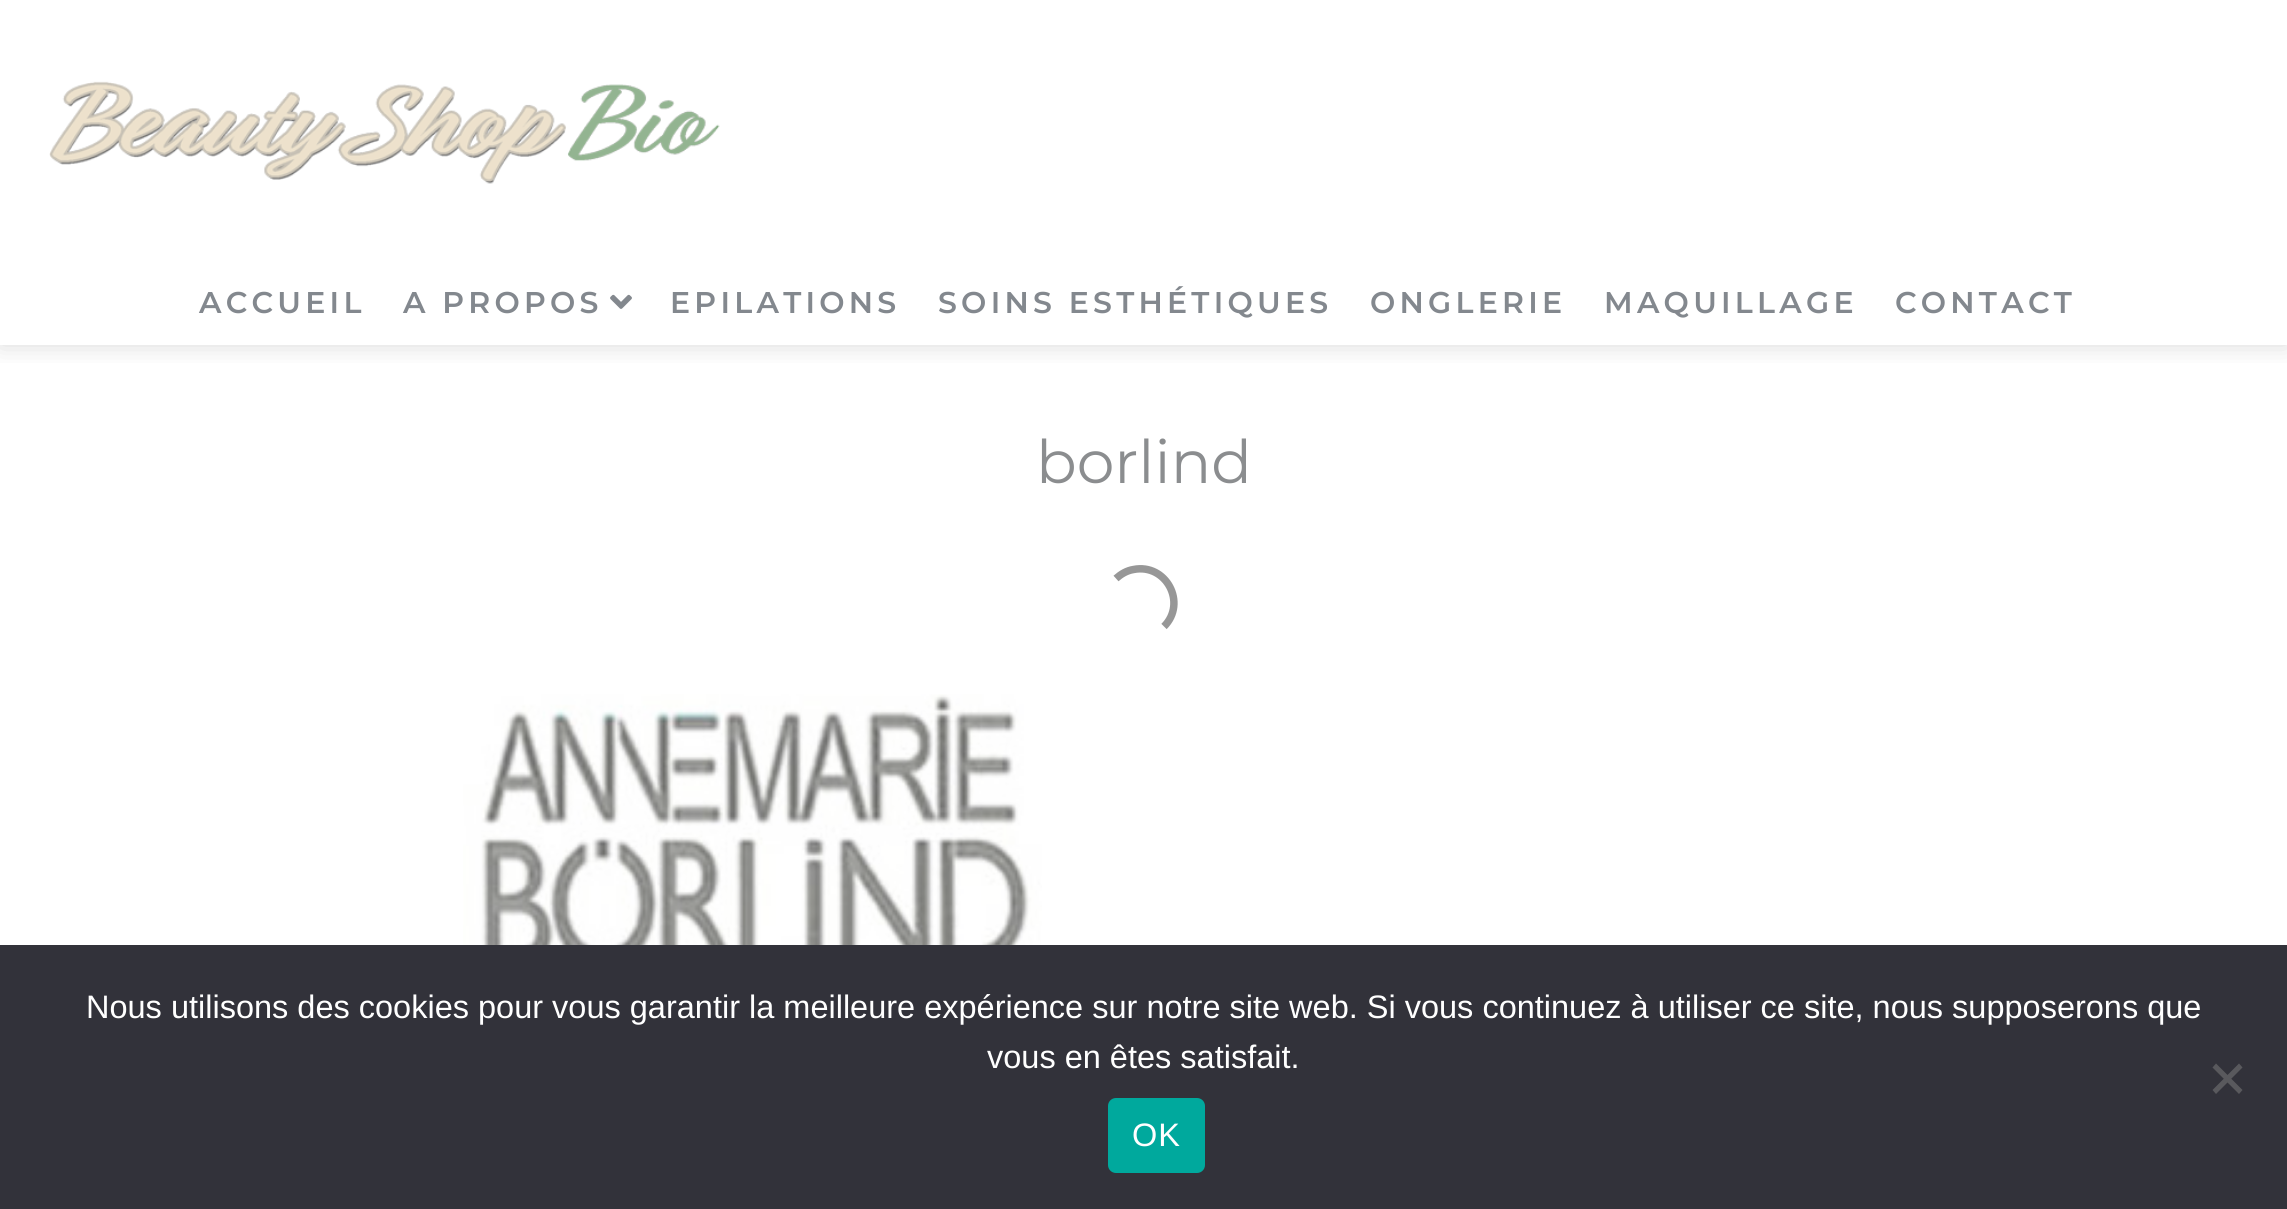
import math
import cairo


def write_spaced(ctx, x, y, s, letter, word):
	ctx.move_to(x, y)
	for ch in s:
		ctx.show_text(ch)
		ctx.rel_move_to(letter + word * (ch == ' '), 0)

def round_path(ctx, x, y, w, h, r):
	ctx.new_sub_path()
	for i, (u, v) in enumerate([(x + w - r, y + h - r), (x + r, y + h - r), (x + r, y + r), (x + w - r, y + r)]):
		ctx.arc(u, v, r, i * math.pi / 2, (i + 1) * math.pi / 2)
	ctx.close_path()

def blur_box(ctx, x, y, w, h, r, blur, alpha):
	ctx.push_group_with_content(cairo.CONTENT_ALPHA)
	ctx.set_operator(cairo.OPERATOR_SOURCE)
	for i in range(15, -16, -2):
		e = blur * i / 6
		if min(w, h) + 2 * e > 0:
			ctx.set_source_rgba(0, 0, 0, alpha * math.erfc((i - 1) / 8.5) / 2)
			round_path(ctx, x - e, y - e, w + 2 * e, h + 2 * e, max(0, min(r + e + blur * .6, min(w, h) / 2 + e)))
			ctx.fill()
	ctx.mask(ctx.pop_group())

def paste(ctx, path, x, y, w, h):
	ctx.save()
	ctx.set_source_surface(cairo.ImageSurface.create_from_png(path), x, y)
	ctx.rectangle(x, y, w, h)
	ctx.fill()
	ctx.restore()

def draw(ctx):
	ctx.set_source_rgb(1, 1, 1)
	ctx.paint()
	ctx.save()
	ctx.rectangle(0, 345, 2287, 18)
	ctx.clip()
	ctx.set_source_rgb(0.412, 0.412, 0.412)
	blur_box(ctx, 0, 0, 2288, 345, 0, 12.5, 0.25)
	ctx.restore()
	paste(ctx, 'media/1.png', 49, 81, 671, 103)
	ctx.select_font_face('Montserrat SemiBold')
	ctx.set_font_size(30)
	ctx.set_source_rgb(0.514, 0.533, 0.557)
	write_spaced(ctx, 199, 313, 'ACCUEIL', 4.25, 0)
	write_spaced(ctx, 403, 313, 'A PROPOS', 4.25, 0)
	paste(ctx, 'media/2.png', 610, 294, 22, 15)
	for x, y, s in [
		(670, 313, 'EPILATIONS'),
		(938, 313, 'SOINS ESTHÉTIQUES'),
		(1370, 313, 'ONGLERIE'),
		(1604, 313, 'MAQUILLAGE'),
		(1895, 313, 'CONTACT'),
	]:
		write_spaced(ctx, x, y, s, 4.25, 0)
	ctx.select_font_face('Montserrat')
	ctx.set_font_size(60)
	ctx.set_source_rgb(0.545, 0.553, 0.561)
	ctx.move_to(1036, 483)
	ctx.show_text('borlind')
	paste(ctx, 'media/3.png', 463, 694, 579, 251)
	ctx.new_path()
	ctx.move_to(1116, 578.5)
	ctx.curve_to(1121, 574, 1127, 570.5, 1133.5, 569.5)
	ctx.curve_to(1166, 563, 1187.5, 603, 1164, 626.5)
	ctx.set_source_rgb(0.592, 0.592, 0.592)
	ctx.set_line_width(7.5)
	ctx.stroke()
	ctx.set_source_rgb(0.196, 0.196, 0.227)
	ctx.rectangle(0, 945, 2287, 264)
	ctx.fill()
	ctx.select_font_face('Liberation Sans')
	ctx.set_font_size(32.5)
	ctx.set_source_rgb(1, 1, 1)
	ctx.move_to(86, 1018)
	ctx.show_text('Nous utilisons des cookies pour vous garantir la meilleure expérience sur notre site web. Si vous continuez à utiliser ce site, nous supposerons que')
	ctx.move_to(987, 1068)
	ctx.show_text('vous en êtes satisfait.')
	ctx.set_source_rgb(0.349, 0.349, 0.365)
	ctx.new_path()
	ctx.move_to(2239, 1063.5)
	ctx.line_to(2242.5, 1067.5)
	ctx.line_to(2216, 1094)
	ctx.line_to(2212.5, 1090)
	ctx.close_path()
	ctx.fill()
	ctx.new_path()
	ctx.move_to(2212.5, 1067.5)
	ctx.line_to(2216, 1063.5)
	ctx.line_to(2242.5, 1090)
	ctx.line_to(2239, 1094)
	ctx.close_path()
	ctx.fill()
	ctx.set_source_rgb(0, 0.663, 0.616)
	round_path(ctx, 1108, 1098, 97, 75, 8)
	ctx.fill()
	ctx.set_source_rgb(1, 1, 1)
	write_spaced(ctx, 1132, 1146, 'OK', 1, 0)


surface = cairo.ImageSurface(cairo.FORMAT_RGB24, 2287, 1209)
ctx = cairo.Context(surface)
options = cairo.FontOptions()
options.set_hint_metrics(cairo.HINT_METRICS_OFF)
options.set_hint_style(cairo.HINT_STYLE_NONE)
ctx.set_font_options(options)
ctx.set_miter_limit(4)
draw(ctx)
surface.write_to_png('image.png')
